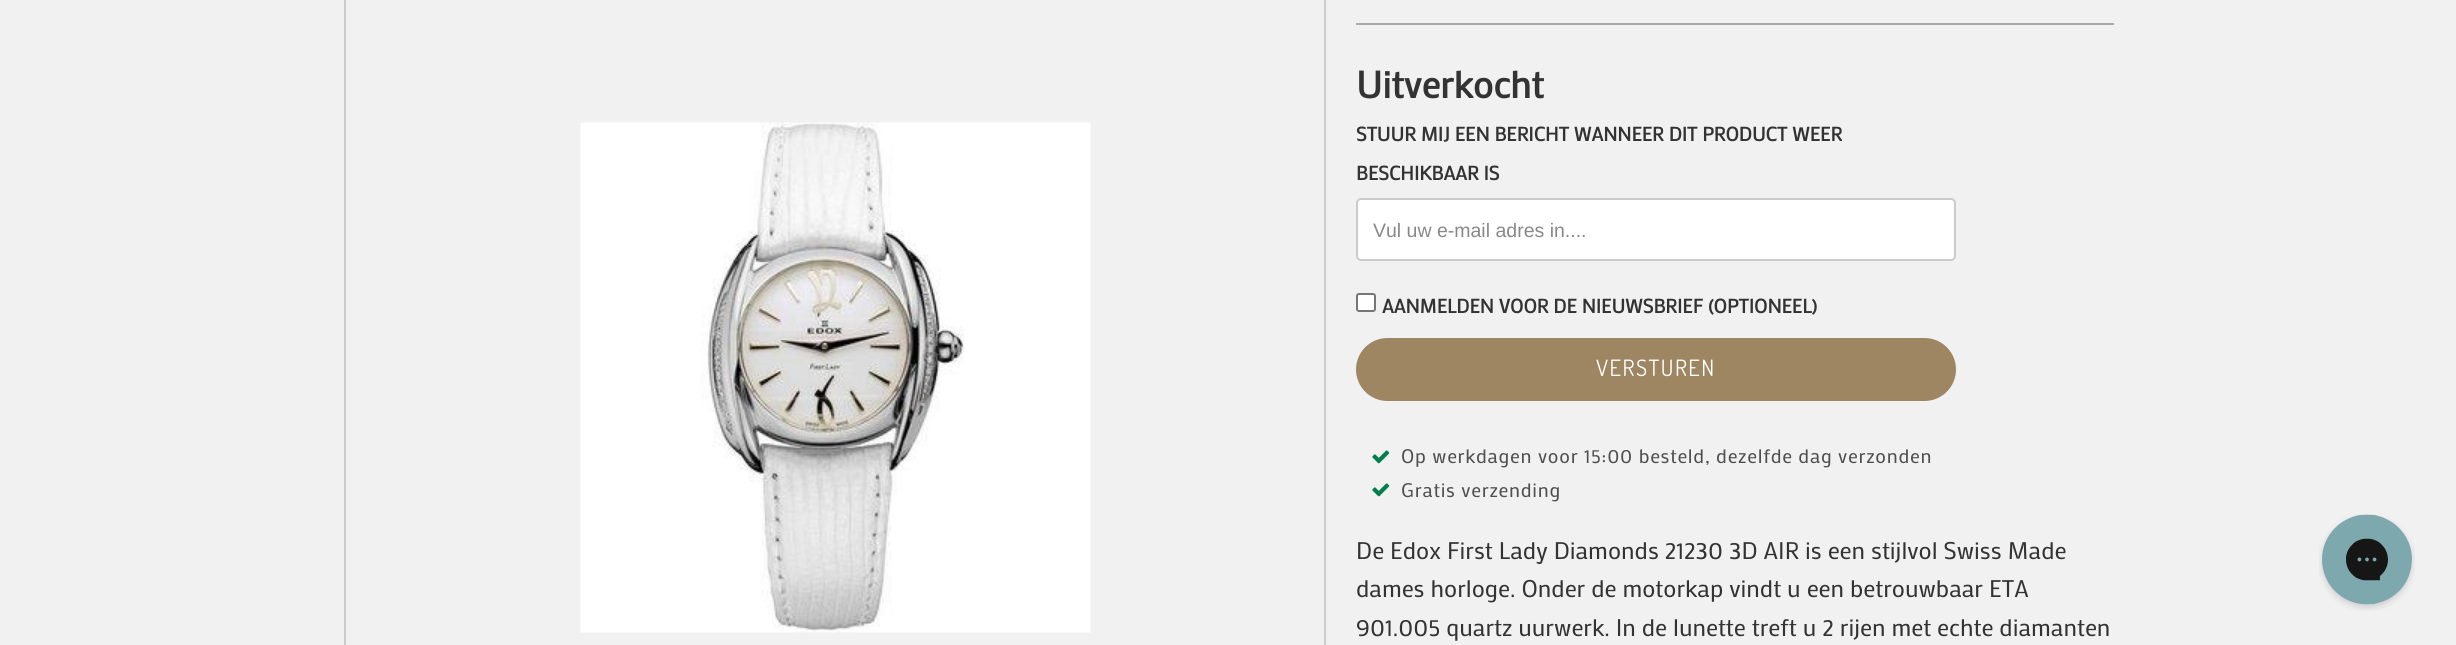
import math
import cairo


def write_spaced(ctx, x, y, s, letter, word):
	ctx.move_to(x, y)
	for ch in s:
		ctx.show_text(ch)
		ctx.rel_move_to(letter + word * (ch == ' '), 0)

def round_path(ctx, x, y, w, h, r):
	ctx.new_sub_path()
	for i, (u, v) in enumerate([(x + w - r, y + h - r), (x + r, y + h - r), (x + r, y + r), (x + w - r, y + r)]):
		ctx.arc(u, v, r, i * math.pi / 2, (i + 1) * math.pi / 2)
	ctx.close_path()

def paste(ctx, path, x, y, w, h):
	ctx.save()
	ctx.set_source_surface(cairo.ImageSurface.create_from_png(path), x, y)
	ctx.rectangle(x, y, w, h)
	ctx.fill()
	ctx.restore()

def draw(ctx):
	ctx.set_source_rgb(0.945, 0.945, 0.945)
	ctx.paint()
	ctx.rectangle(345, -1, 980, 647)
	ctx.set_source_rgb(0.8, 0.8, 0.8)
	ctx.stroke()
	paste(ctx, 'media/1.png', 580, 122, 511, 511)
	ctx.set_source_rgb(0.667, 0.667, 0.667)
	ctx.rectangle(1356, 23, 758, 2)
	ctx.fill()
	ctx.select_font_face('Mako', cairo.FONT_SLANT_NORMAL, cairo.FONT_WEIGHT_BOLD)
	ctx.set_font_size(37.5)
	ctx.set_source_rgb(0.2, 0.2, 0.2)
	ctx.move_to(1356, 98)
	ctx.show_text('Uitverkocht')
	ctx.set_font_size(19.5)
	ctx.move_to(1356, 141)
	ctx.show_text('STUUR MIJ EEN BERICHT WANNEER DIT PRODUCT WEER')
	ctx.move_to(1356, 180)
	ctx.show_text('BESCHIKBAAR IS')
	ctx.set_source_rgb(1, 1, 1)
	round_path(ctx, 1357, 199, 598, 61, 4)
	ctx.fill_preserve()
	ctx.set_source_rgb(0.8, 0.8, 0.8)
	ctx.stroke()
	ctx.select_font_face('Liberation Sans')
	ctx.set_source_rgb(0.533, 0.533, 0.533)
	ctx.move_to(1373, 237)
	ctx.show_text('Vul uw e-mail adres in....')
	ctx.set_source_rgb(1, 1, 1)
	round_path(ctx, 1357, 294, 18, 17, 2)
	ctx.fill_preserve()
	ctx.set_source_rgb(0.463, 0.463, 0.463)
	ctx.stroke()
	ctx.select_font_face('Mako', cairo.FONT_SLANT_NORMAL, cairo.FONT_WEIGHT_BOLD)
	ctx.set_source_rgb(0.2, 0.2, 0.2)
	ctx.move_to(1382, 313)
	ctx.show_text('AANMELDEN VOOR DE NIEUWSBRIEF (OPTIONEEL)')
	ctx.set_source_rgb(0.616, 0.525, 0.38)
	round_path(ctx, 1357, 339, 598, 61, 30.5)
	ctx.fill_preserve()
	ctx.stroke()
	ctx.select_font_face('Dosis')
	ctx.set_font_size(22.5)
	ctx.set_source_rgb(1, 1, 1)
	write_spaced(ctx, 1596, 376, 'VERSTUREN', 1.5, 0)
	paste(ctx, 'media/2.png', 1372, 450, 18, 14)
	ctx.select_font_face('Mako')
	ctx.set_font_size(19.5)
	ctx.set_source_rgb(0.31, 0.31, 0.31)
	write_spaced(ctx, 1401, 463, 'Op werkdagen voor 15:00 besteld, dezelfde dag verzonden', 0.75, 0)
	paste(ctx, 'media/2.png', 1372, 483, 18, 14)
	write_spaced(ctx, 1401, 497, 'Gratis verzending', 0.75, 0)
	ctx.set_font_size(24)
	ctx.set_source_rgb(0.2, 0.2, 0.2)
	for x, y, s in [
		(1356, 559, 'De Edox First Lady Diamonds 21230 3D AIR is een stijlvol Swiss Made'),
		(1356, 597, 'dames horloge. Onder de motorkap vindt u een betrouwbaar ETA'),
		(1356, 636, '901.005 quartz uurwerk. In de lunette treft u 2 rijen met echte diamanten'),
	]:
		ctx.move_to(x, y)
		ctx.show_text(s)
	paste(ctx, 'media/3.png', 2319, 514, 96, 97)


surface = cairo.ImageSurface(cairo.FORMAT_RGB24, 2456, 645)
ctx = cairo.Context(surface)
options = cairo.FontOptions()
options.set_hint_metrics(cairo.HINT_METRICS_OFF)
options.set_hint_style(cairo.HINT_STYLE_NONE)
ctx.set_font_options(options)
ctx.set_miter_limit(4)
draw(ctx)
surface.write_to_png('image.png')
